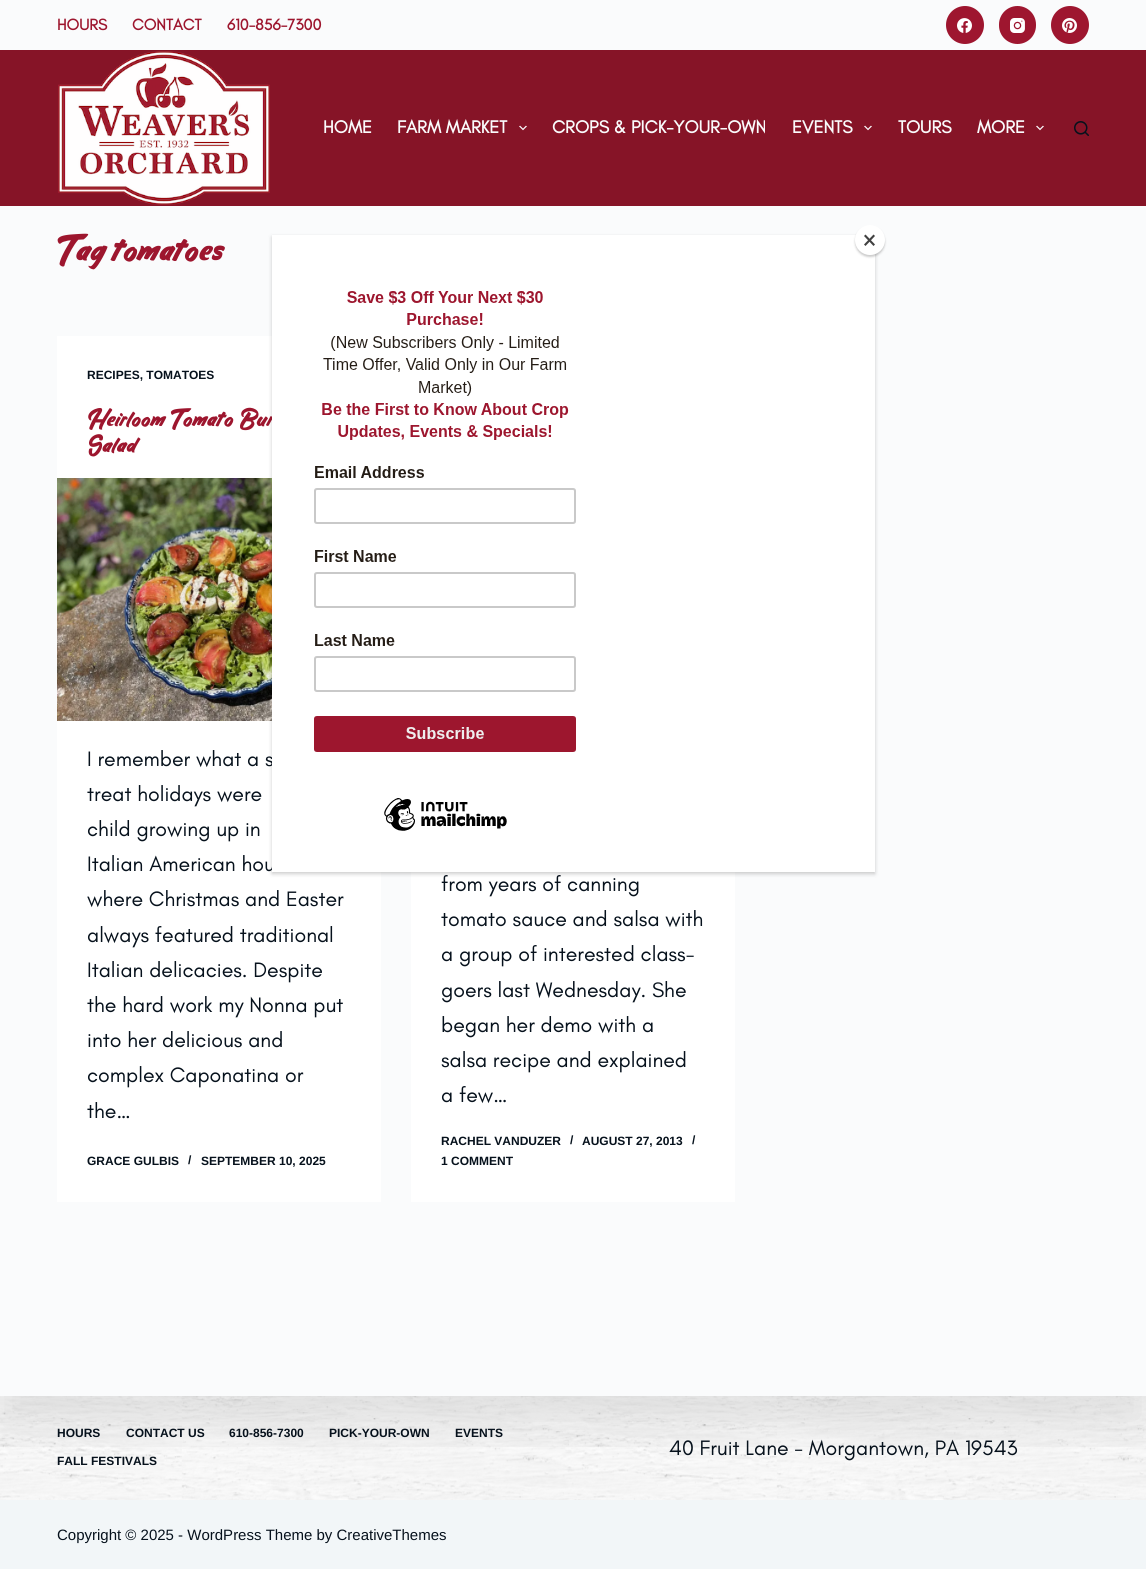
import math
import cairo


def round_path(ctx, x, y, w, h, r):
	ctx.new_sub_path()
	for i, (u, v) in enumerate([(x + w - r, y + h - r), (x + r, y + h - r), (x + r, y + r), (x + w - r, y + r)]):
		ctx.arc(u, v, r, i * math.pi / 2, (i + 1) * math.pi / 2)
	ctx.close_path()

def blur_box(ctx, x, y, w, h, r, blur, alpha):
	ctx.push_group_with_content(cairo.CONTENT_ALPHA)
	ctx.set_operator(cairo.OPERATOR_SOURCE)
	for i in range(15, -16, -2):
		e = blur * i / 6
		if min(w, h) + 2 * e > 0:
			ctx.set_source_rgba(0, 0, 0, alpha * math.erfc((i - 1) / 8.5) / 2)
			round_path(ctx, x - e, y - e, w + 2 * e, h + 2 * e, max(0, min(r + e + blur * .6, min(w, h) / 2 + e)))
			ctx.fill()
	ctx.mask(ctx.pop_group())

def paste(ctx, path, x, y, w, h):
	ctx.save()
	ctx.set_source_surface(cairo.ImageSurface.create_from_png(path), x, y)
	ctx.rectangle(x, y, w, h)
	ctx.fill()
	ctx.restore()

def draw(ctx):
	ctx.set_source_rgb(0.98, 0.984, 0.988)
	ctx.paint()
	ctx.select_font_face('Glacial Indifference', cairo.FONT_SLANT_NORMAL, cairo.FONT_WEIGHT_BOLD)
	ctx.set_font_size(16)
	ctx.set_source_rgb(0.616, 0.086, 0.18)
	for x, y, s in [
		(57, 30, 'HOURS'),
		(132, 30, 'CONTACT'),
		(227, 30, '610-856-7300'),
	]:
		ctx.move_to(x, y)
		ctx.show_text(s)
	ctx.set_source_rgb(0.62, 0.086, 0.184)
	ctx.new_path()
	ctx.arc(965, 25, 19, 0, 2 * math.pi)
	ctx.fill()
	paste(ctx, 'media/1.png', 957, 18, 15, 15)
	round_path(ctx, 999, 6, 37, 38, 18.5)
	ctx.fill()
	paste(ctx, 'media/2.png', 1010, 18, 15, 15)
	ctx.arc(1070, 25, 19, 0, 2 * math.pi)
	ctx.fill()
	paste(ctx, 'media/3.png', 1062, 18, 15, 15)
	ctx.set_source_rgb(0.949, 0.961, 0.969)
	ctx.rectangle(0, 1500, 1146, 69)
	ctx.fill()
	paste(ctx, 'media/8.png', 0, 1396, 1146, 104)
	ctx.save()
	ctx.rectangle(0, 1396, 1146, 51)
	ctx.clip()
	ctx.set_source_rgb(0, 0, 0)
	blur_box(ctx, 0, 236, 1146, 1190, 0, 25, 0.1)
	ctx.restore()
	ctx.set_source_rgb(0.525, 0.082, 0.153)
	ctx.rectangle(0, 50, 1146, 156)
	ctx.fill()
	paste(ctx, 'media/4.png', 58, 51, 212, 154)
	ctx.set_font_size(18)
	ctx.set_source_rgb(0.98, 0.984, 0.988)
	ctx.move_to(323, 133)
	ctx.show_text('HOME')
	ctx.move_to(397, 133)
	ctx.show_text('FARM MARKET')
	paste(ctx, 'media/5.png', 519, 125, 8, 6)
	ctx.move_to(552, 133)
	ctx.show_text('CROPS & PICK-YOUR-OWN')
	ctx.move_to(792, 133)
	ctx.show_text('EVENTS')
	paste(ctx, 'media/5.png', 864, 125, 8, 6)
	ctx.move_to(898, 133)
	ctx.show_text('TOURS')
	ctx.move_to(977, 133)
	ctx.show_text('MORE')
	paste(ctx, 'media/5.png', 1036, 125, 8, 6)
	paste(ctx, 'media/6.png', 1074, 121, 15, 15)
	ctx.select_font_face('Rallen')
	ctx.set_font_size(30)
	ctx.set_source_rgb(0.616, 0.086, 0.18)
	ctx.move_to(57, 259)
	ctx.show_text('Tag tomatoes')
	ctx.set_source_rgb(1, 1, 1)
	ctx.rectangle(57, 336, 324, 866)
	ctx.fill()
	ctx.select_font_face('Liberation Sans', cairo.FONT_SLANT_NORMAL, cairo.FONT_WEIGHT_BOLD)
	ctx.set_font_size(12)
	ctx.set_source_rgb(0.027, 0.067, 0.11)
	ctx.move_to(87, 379)
	ctx.show_text('RECIPES, TOMATOES')
	ctx.select_font_face('Rallen')
	ctx.set_font_size(20)
	ctx.set_source_rgb(0.616, 0.086, 0.18)
	ctx.move_to(87, 425)
	ctx.show_text('Heirloom Tomato Bur')
	ctx.move_to(87, 451)
	ctx.show_text('Salad')
	paste(ctx, 'media/7.png', 57, 478, 215, 243)
	ctx.select_font_face('Glacial Indifference')
	ctx.set_font_size(21.3)
	ctx.set_source_rgb(0.027, 0.067, 0.11)
	for x, y, s in [
		(87, 766, 'I remember what a s'),
		(87, 801, 'treat holidays were'),
		(87, 836, 'child growing up in'),
		(87, 871, 'Italian American hou'),
		(87, 906, 'where Christmas and Easter'),
		(87, 942, 'always featured traditional'),
		(87, 977, 'Italian delicacies. Despite'),
		(87, 1012, 'the hard work my Nonna put'),
		(87, 1047, 'into her delicious and'),
		(87, 1082, 'complex Caponatina or'),
		(87, 1118, 'the…'),
	]:
		ctx.move_to(x, y)
		ctx.show_text(s)
	ctx.select_font_face('Liberation Sans', cairo.FONT_SLANT_NORMAL, cairo.FONT_WEIGHT_BOLD)
	ctx.set_font_size(12)
	for x, y, s in [
		(87, 1165, 'GRACE GULBIS'),
		(188, 1164, '/'),
		(201, 1165, 'SEPTEMBER 10, 2025'),
	]:
		ctx.move_to(x, y)
		ctx.show_text(s)
	ctx.set_source_rgb(1, 1, 1)
	ctx.rectangle(411, 872, 324, 330)
	ctx.fill()
	ctx.select_font_face('Glacial Indifference')
	ctx.set_font_size(21.3)
	ctx.set_source_rgb(0.027, 0.067, 0.11)
	for x, y, s in [
		(441, 891, 'from years of canning'),
		(441, 926, 'tomato sauce and salsa with'),
		(441, 961, 'a group of interested class-'),
		(441, 997, 'goers last Wednesday. She'),
		(441, 1032, 'began her demo with a'),
		(441, 1067, 'salsa recipe and explained'),
		(441, 1102, 'a few…'),
	]:
		ctx.move_to(x, y)
		ctx.show_text(s)
	ctx.select_font_face('Liberation Sans', cairo.FONT_SLANT_NORMAL, cairo.FONT_WEIGHT_BOLD)
	ctx.set_font_size(12)
	for x, y, s in [
		(441, 1145, 'RACHEL VANDUZER'),
		(570, 1144, '/'),
		(582, 1145, 'AUGUST 27, 2013'),
		(692, 1144, '/'),
		(441, 1165, '1 COMMENT'),
		(57, 1437, 'HOURS'),
		(126, 1437, 'CONTACT US'),
		(229, 1437, '610-856-7300'),
		(329, 1437, 'PICK-YOUR-OWN'),
		(455, 1437, 'EVENTS'),
		(57, 1465, 'FALL FESTIVALS'),
	]:
		ctx.move_to(x, y)
		ctx.show_text(s)
	ctx.select_font_face('Glacial Indifference')
	ctx.set_font_size(21.3)
	ctx.move_to(669, 1455)
	ctx.show_text('40 Fruit Lane - Morgantown, PA 19543')
	ctx.select_font_face('Liberation Sans')
	ctx.set_font_size(15)
	ctx.move_to(57, 1540)
	ctx.show_text('Copyright © 2025 - WordPress Theme by CreativeThemes')
	ctx.set_source_rgb(0, 0, 0)
	blur_box(ctx, 272, 237, 603, 637, 0, 2, 0.2)
	paste(ctx, 'media/9.png', 272, 235, 603, 637)
	blur_box(ctx, 855, 227, 30, 30, 15, 1, 0.2)
	ctx.set_source_rgb(1, 1, 1)
	ctx.arc(870, 240, 15, 0, 2 * math.pi)
	ctx.fill()
	ctx.set_source_rgb(0.255, 0.255, 0.255)
	ctx.new_path()
	ctx.move_to(873.5, 234.5)
	ctx.line_to(875, 236)
	ctx.line_to(865.5, 246)
	ctx.line_to(864, 244.5)
	ctx.close_path()
	ctx.fill()
	ctx.new_path()
	ctx.move_to(864, 236)
	ctx.line_to(865.5, 234.5)
	ctx.line_to(875, 244.5)
	ctx.line_to(873.5, 246)
	ctx.close_path()
	ctx.fill()


surface = cairo.ImageSurface(cairo.FORMAT_RGB24, 1146, 1569)
ctx = cairo.Context(surface)
options = cairo.FontOptions()
options.set_hint_metrics(cairo.HINT_METRICS_OFF)
options.set_hint_style(cairo.HINT_STYLE_NONE)
ctx.set_font_options(options)
ctx.set_miter_limit(4)
draw(ctx)
surface.write_to_png('image.png')
